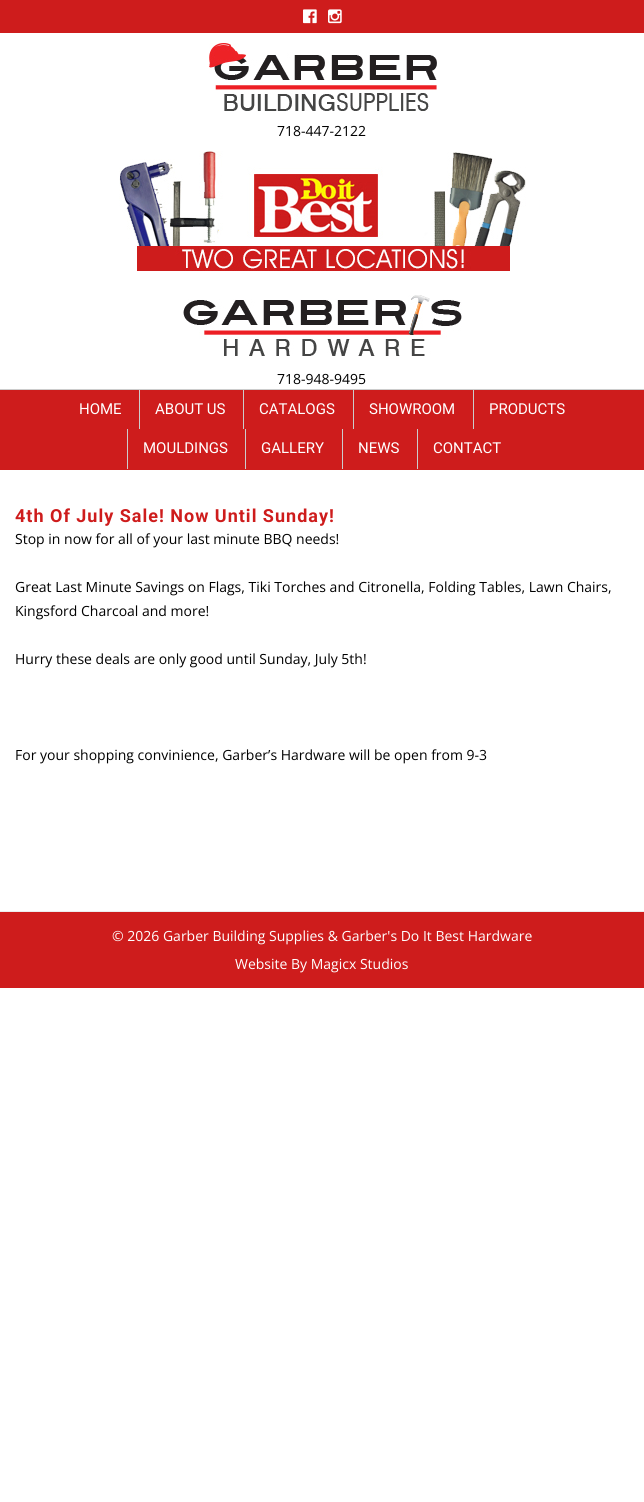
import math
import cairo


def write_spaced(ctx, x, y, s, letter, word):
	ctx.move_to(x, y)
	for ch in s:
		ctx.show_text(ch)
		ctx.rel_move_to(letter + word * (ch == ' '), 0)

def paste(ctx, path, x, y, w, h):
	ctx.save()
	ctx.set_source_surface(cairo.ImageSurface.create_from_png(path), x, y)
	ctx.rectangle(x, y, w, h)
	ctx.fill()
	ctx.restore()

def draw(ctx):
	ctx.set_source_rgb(1, 1, 1)
	ctx.paint()
	ctx.set_source_rgb(0.808, 0.11, 0.11)
	ctx.rectangle(0, 0, 644, 33)
	ctx.fill()
	paste(ctx, 'media/1.png', 303, 9, 14, 15)
	paste(ctx, 'media/2.png', 328, 9, 14, 15)
	paste(ctx, 'media/3.png', 209, 43, 228, 68)
	ctx.select_font_face('Open Sans')
	ctx.set_font_size(14)
	ctx.set_source_rgb(0, 0, 0)
	ctx.move_to(277, 136)
	ctx.show_text('718-447-2122')
	paste(ctx, 'media/4.png', 119, 151, 407, 120)
	paste(ctx, 'media/5.png', 183, 295, 279, 61)
	ctx.move_to(277, 384)
	ctx.show_text('718-948-9495')
	ctx.set_source_rgb(0.808, 0.11, 0.11)
	ctx.rectangle(0, 390, 644, 80)
	ctx.fill()
	ctx.set_source_rgb(0.8, 0.8, 0.8)
	ctx.rectangle(0, 389, 644, 1)
	ctx.fill()
	ctx.select_font_face('Roboto')
	ctx.set_font_size(15)
	ctx.set_source_rgb(1, 1, 1)
	ctx.move_to(79, 414)
	ctx.show_text('HOME')
	ctx.set_source_rgb(0.8, 0.8, 0.8)
	ctx.rectangle(139, 390, 1, 39)
	ctx.fill()
	ctx.set_source_rgb(1, 1, 1)
	ctx.move_to(155, 414)
	ctx.show_text('ABOUT US')
	ctx.set_source_rgb(0.8, 0.8, 0.8)
	ctx.rectangle(243, 390, 1, 39)
	ctx.fill()
	ctx.set_source_rgb(1, 1, 1)
	ctx.move_to(259, 414)
	ctx.show_text('CATALOGS')
	ctx.set_source_rgb(0.8, 0.8, 0.8)
	ctx.rectangle(353, 390, 1, 39)
	ctx.fill()
	ctx.set_source_rgb(1, 1, 1)
	ctx.move_to(369, 414)
	ctx.show_text('SHOWROOM')
	ctx.set_source_rgb(0.8, 0.8, 0.8)
	ctx.rectangle(473, 390, 1, 39)
	ctx.fill()
	ctx.set_source_rgb(1, 1, 1)
	ctx.move_to(489, 414)
	ctx.show_text('PRODUCTS')
	ctx.set_source_rgb(0.8, 0.8, 0.8)
	ctx.rectangle(127, 429, 1, 40)
	ctx.fill()
	ctx.set_source_rgb(1, 1, 1)
	ctx.move_to(143, 453)
	ctx.show_text('MOULDINGS')
	ctx.set_source_rgb(0.8, 0.8, 0.8)
	ctx.rectangle(245, 429, 1, 40)
	ctx.fill()
	ctx.set_source_rgb(1, 1, 1)
	ctx.move_to(261, 453)
	ctx.show_text('GALLERY')
	ctx.set_source_rgb(0.8, 0.8, 0.8)
	ctx.rectangle(342, 429, 1, 40)
	ctx.fill()
	ctx.set_source_rgb(1, 1, 1)
	ctx.move_to(358, 453)
	ctx.show_text('NEWS')
	ctx.set_source_rgb(0.8, 0.8, 0.8)
	ctx.rectangle(417, 429, 1, 40)
	ctx.fill()
	ctx.set_source_rgb(1, 1, 1)
	ctx.move_to(433, 453)
	ctx.show_text('CONTACT')
	ctx.select_font_face('Roboto', cairo.FONT_SLANT_NORMAL, cairo.FONT_WEIGHT_BOLD)
	ctx.set_font_size(18)
	ctx.set_source_rgb(0.808, 0.11, 0.11)
	write_spaced(ctx, 15, 522, '4th Of July Sale! Now Until Sunday!', 1, 0)
	ctx.select_font_face('Open Sans')
	ctx.set_font_size(14)
	ctx.set_source_rgb(0, 0, 0)
	for x, y, s in [
		(15, 544, 'Stop in now for all of your last minute BBQ needs!'),
		(15, 592, 'Great Last Minute Savings on Flags, Tiki Torches and Citronella, Folding Tables, Lawn Chairs,'),
		(15, 616, 'Kingsford Charcoal and more!'),
		(15, 664, 'Hurry these deals are only good until Sunday, July 5th!'),
		(15, 760, 'For your shopping convinience, Garber’s Hardware will be open from 9-3'),
	]:
		ctx.move_to(x, y)
		ctx.show_text(s)
	ctx.set_source_rgb(0.808, 0.11, 0.11)
	ctx.rectangle(0, 912, 644, 76)
	ctx.fill()
	ctx.set_source_rgb(0.929, 0.929, 0.929)
	ctx.rectangle(0, 911, 644, 1)
	ctx.fill()
	ctx.set_source_rgb(1, 1, 1)
	ctx.move_to(112, 941)
	ctx.show_text('© 2026 Garber Building Supplies & Garber\'s Do It Best Hardware')
	ctx.move_to(235, 969)
	ctx.show_text('Website By Magicx Studios')


surface = cairo.ImageSurface(cairo.FORMAT_RGB24, 644, 1502)
ctx = cairo.Context(surface)
options = cairo.FontOptions()
options.set_hint_metrics(cairo.HINT_METRICS_OFF)
options.set_hint_style(cairo.HINT_STYLE_NONE)
ctx.set_font_options(options)
ctx.set_miter_limit(4)
draw(ctx)
surface.write_to_png('image.png')
